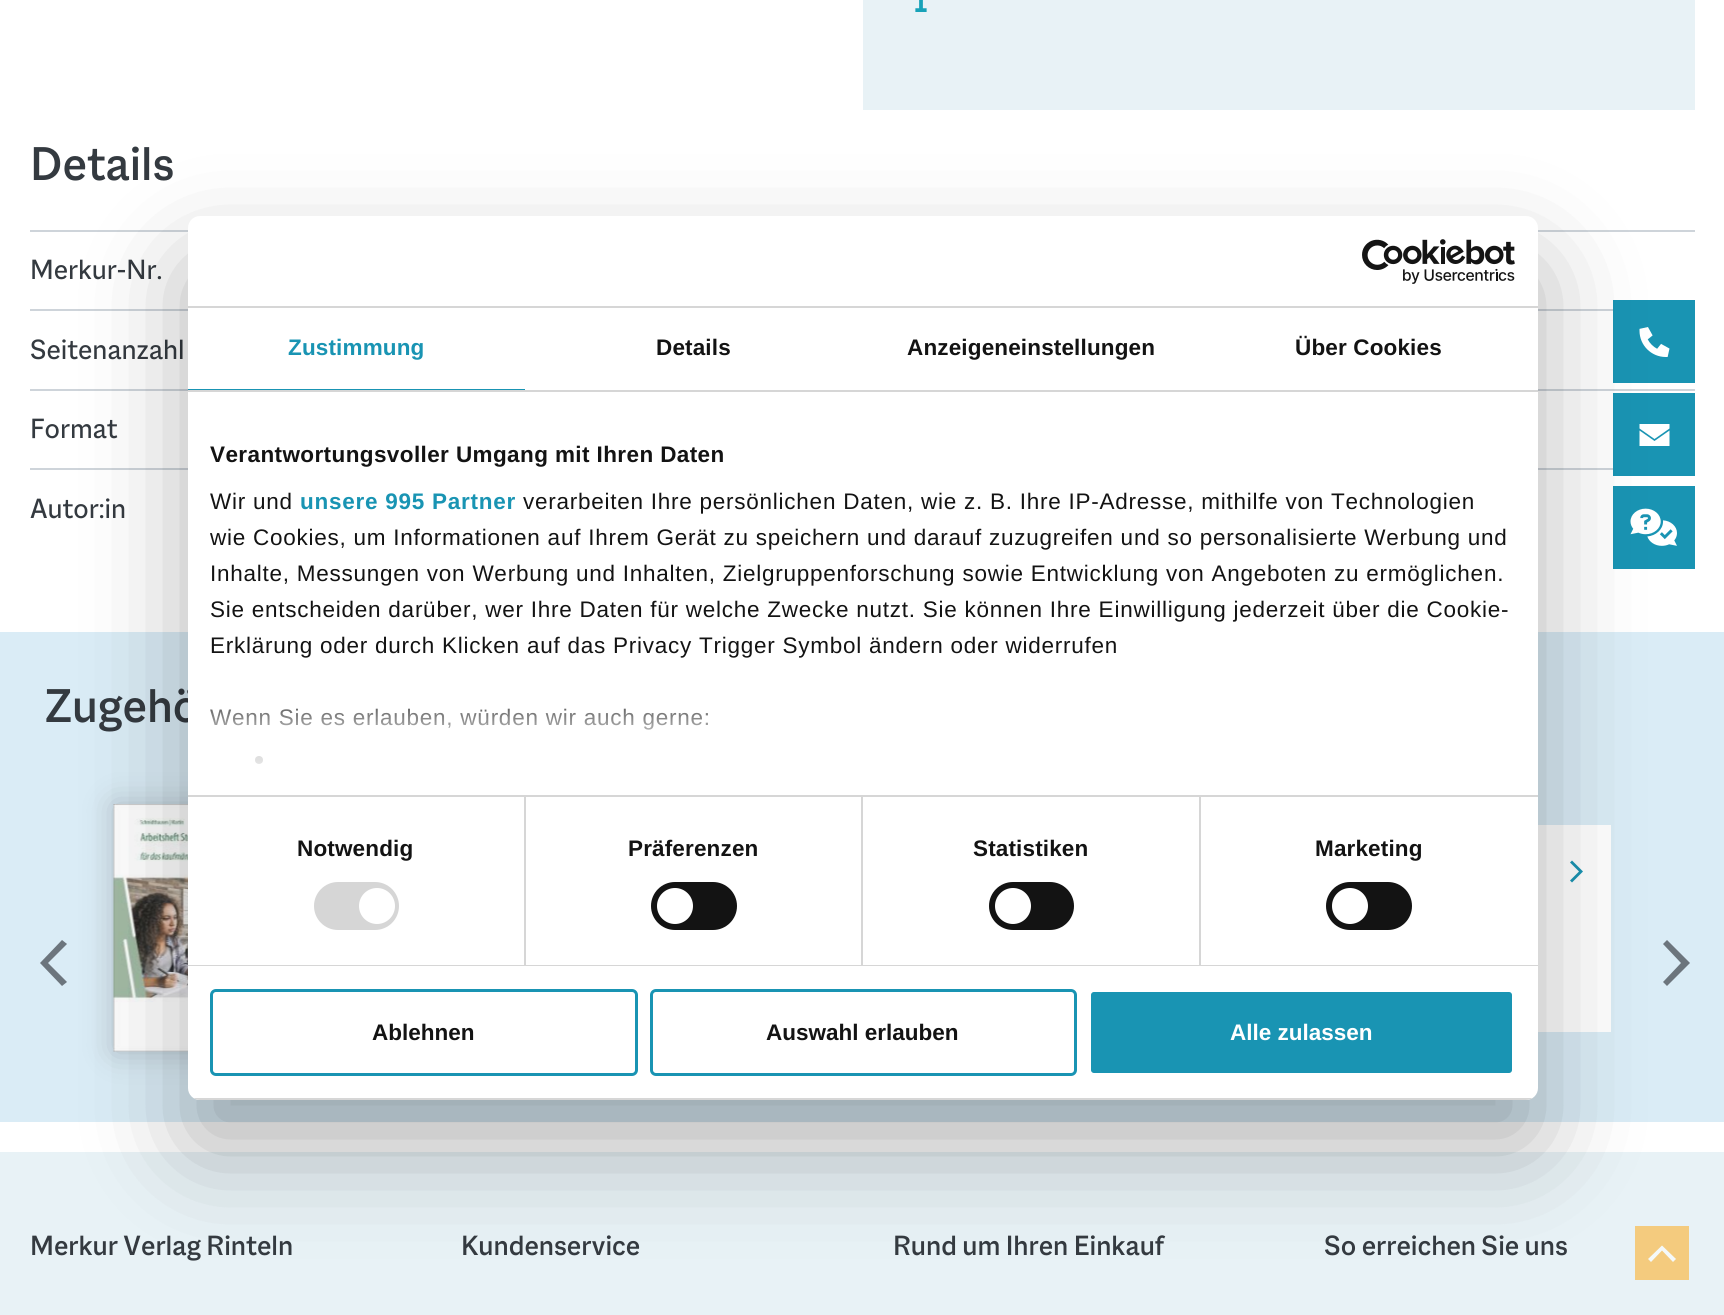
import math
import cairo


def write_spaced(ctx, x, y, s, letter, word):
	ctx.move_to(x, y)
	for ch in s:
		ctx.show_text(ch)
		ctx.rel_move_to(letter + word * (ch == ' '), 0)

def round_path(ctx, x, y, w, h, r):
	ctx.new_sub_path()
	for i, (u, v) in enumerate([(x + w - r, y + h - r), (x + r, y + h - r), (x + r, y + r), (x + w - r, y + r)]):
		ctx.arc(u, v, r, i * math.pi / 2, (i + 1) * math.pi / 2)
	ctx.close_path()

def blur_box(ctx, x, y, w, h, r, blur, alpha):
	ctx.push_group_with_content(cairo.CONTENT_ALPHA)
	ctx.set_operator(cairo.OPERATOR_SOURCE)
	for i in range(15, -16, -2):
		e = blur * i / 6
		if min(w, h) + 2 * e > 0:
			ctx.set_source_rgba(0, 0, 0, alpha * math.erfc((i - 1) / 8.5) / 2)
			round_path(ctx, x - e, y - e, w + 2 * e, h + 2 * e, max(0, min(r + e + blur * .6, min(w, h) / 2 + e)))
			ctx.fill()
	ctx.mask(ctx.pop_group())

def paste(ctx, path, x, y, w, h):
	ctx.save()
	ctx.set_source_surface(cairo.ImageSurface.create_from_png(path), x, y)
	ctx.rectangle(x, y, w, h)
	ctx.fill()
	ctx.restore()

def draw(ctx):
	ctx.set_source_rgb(1, 1, 1)
	ctx.paint()
	ctx.set_source_rgb(0.91, 0.949, 0.961)
	ctx.rectangle(863, 0, 832, 110)
	ctx.fill()
	paste(ctx, 'media/1.png', 915, 0, 12, 12)
	ctx.select_font_face('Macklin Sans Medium')
	ctx.set_font_size(51)
	ctx.set_source_rgb(0.204, 0.227, 0.251)
	ctx.move_to(30, 180)
	ctx.show_text('Details')
	ctx.set_source_rgb(0.808, 0.831, 0.855)
	ctx.rectangle(30, 230, 158, 2)
	ctx.fill()
	ctx.select_font_face('Macklin Sans')
	ctx.set_font_size(30)
	ctx.set_source_rgb(0.204, 0.227, 0.251)
	ctx.move_to(30, 279)
	ctx.show_text('Merkur-Nr.')
	ctx.set_source_rgb(0.808, 0.831, 0.855)
	ctx.rectangle(30, 309, 158, 2)
	ctx.fill()
	ctx.set_source_rgb(0.204, 0.227, 0.251)
	ctx.move_to(30, 359)
	ctx.show_text('Seitenanzahl')
	ctx.set_source_rgb(0.808, 0.831, 0.855)
	ctx.rectangle(30, 389, 158, 2)
	ctx.fill()
	ctx.set_source_rgb(0.204, 0.227, 0.251)
	ctx.move_to(30, 438)
	ctx.show_text('Format')
	ctx.set_source_rgb(0.808, 0.831, 0.855)
	ctx.rectangle(30, 468, 158, 2)
	ctx.fill()
	ctx.set_source_rgb(0.204, 0.227, 0.251)
	ctx.move_to(30, 518)
	ctx.show_text('Autor:in')
	ctx.set_source_rgb(0.808, 0.831, 0.855)
	ctx.rectangle(1538, 230, 157, 2)
	ctx.rectangle(1538, 309, 75, 2)
	ctx.rectangle(1538, 389, 157, 2)
	ctx.rectangle(1538, 468, 75, 2)
	ctx.fill()
	ctx.set_source_rgb(0.855, 0.922, 0.961)
	ctx.rectangle(0, 632, 1724, 490)
	ctx.fill()
	ctx.select_font_face('Macklin Sans Medium')
	ctx.set_font_size(51)
	ctx.set_source_rgb(0.204, 0.227, 0.251)
	ctx.move_to(45, 722)
	ctx.show_text('Zugehö')
	ctx.set_source_rgb(0, 0, 0)
	blur_box(ctx, 114, 804, 176, 248, 0, 15, 0.2)
	paste(ctx, 'media/2.png', 113, 804, 75, 248)
	ctx.set_source_rgb(1, 1, 1)
	ctx.rectangle(1538, 825, 73, 207)
	ctx.fill()
	ctx.set_source_rgb(0.098, 0.58, 0.702)
	ctx.new_path()
	ctx.move_to(1583, 871.5)
	ctx.line_to(1572, 882.5)
	ctx.line_to(1570, 880.5)
	ctx.line_to(1579, 871.5)
	ctx.line_to(1570, 862.5)
	ctx.line_to(1572, 860.5)
	ctx.close_path()
	ctx.fill()
	ctx.set_source_rgb(0.424, 0.459, 0.49)
	ctx.new_path()
	ctx.move_to(40, 963)
	ctx.line_to(62, 986)
	ctx.line_to(67, 982)
	ctx.line_to(48, 963)
	ctx.line_to(67, 944)
	ctx.line_to(62, 940)
	ctx.close_path()
	ctx.fill()
	ctx.new_path()
	ctx.move_to(1690, 963)
	ctx.line_to(1667, 986)
	ctx.line_to(1663, 982)
	ctx.line_to(1681, 963)
	ctx.line_to(1663, 944)
	ctx.line_to(1667, 940)
	ctx.close_path()
	ctx.fill()
	ctx.set_source_rgb(0.098, 0.58, 0.702)
	ctx.rectangle(1613, 300, 82, 83)
	ctx.fill()
	paste(ctx, 'media/4.png', 1639, 327, 31, 30)
	ctx.rectangle(1613, 393, 82, 83)
	ctx.fill()
	ctx.set_source_rgb(1, 1, 1)
	ctx.new_path()
	ctx.move_to(1639.5, 424)
	ctx.line_to(1669.5, 424)
	ctx.line_to(1669.5, 428.5)
	ctx.line_to(1654.5, 439)
	ctx.line_to(1639.5, 428.5)
	ctx.close_path()
	ctx.move_to(1639.5, 446)
	ctx.line_to(1639.5, 430.5)
	ctx.line_to(1654.5, 441)
	ctx.line_to(1669.5, 430.5)
	ctx.line_to(1669.5, 446)
	ctx.close_path()
	ctx.fill()
	ctx.set_source_rgb(0.098, 0.58, 0.702)
	ctx.rectangle(1613, 486, 82, 83)
	ctx.fill()
	paste(ctx, 'media/5.png', 1630, 508, 47, 38)
	ctx.set_source_rgb(0.91, 0.949, 0.961)
	ctx.rectangle(0, 1152, 1724, 163)
	ctx.fill()
	ctx.set_source_rgb(0.957, 0.796, 0.494)
	ctx.rectangle(1635, 1226, 54, 54)
	ctx.fill()
	ctx.set_source_rgb(0.957, 0.976, 0.98)
	ctx.new_path()
	ctx.move_to(1662, 1245.5)
	ctx.line_to(1676, 1259)
	ctx.line_to(1673, 1262)
	ctx.line_to(1662, 1250.5)
	ctx.line_to(1651, 1262)
	ctx.line_to(1648, 1259)
	ctx.close_path()
	ctx.fill()
	ctx.set_source_rgb(0, 0, 0)
	blur_box(ctx, 188, 264, 1350, 884, 12, 51, 0.3)
	ctx.set_source_rgb(1, 1, 1)
	round_path(ctx, 188, 216, 1350, 884, 12)
	ctx.fill()
	ctx.set_source_rgb(0.839, 0.839, 0.839)
	ctx.rectangle(188, 306, 1350, 2)
	ctx.fill()
	paste(ctx, 'media/3.png', 1362, 239, 153, 45)
	ctx.rectangle(188, 390, 1350, 2)
	ctx.fill()
	ctx.set_source_rgb(0.098, 0.58, 0.702)
	ctx.rectangle(188, 389, 337, 1)
	ctx.fill()
	ctx.select_font_face('Liberation Sans', cairo.FONT_SLANT_NORMAL, cairo.FONT_WEIGHT_BOLD)
	ctx.set_font_size(22.5)
	write_spaced(ctx, 288, 355, 'Zustimmung', 0.15, 0)
	ctx.set_source_rgb(0.078, 0.078, 0.078)
	for x, y, s in [
		(656, 355, 'Details'),
		(907, 355, 'Anzeigeneinstellungen'),
		(1295, 355, 'Über Cookies'),
	]:
		write_spaced(ctx, x, y, s, 0.15, 0)
	ctx.set_source_rgb(0.839, 0.839, 0.839)
	ctx.rectangle(188, 795, 1350, 2)
	ctx.fill()
	ctx.set_source_rgb(0.078, 0.078, 0.078)
	write_spaced(ctx, 210, 462, 'Verantwortungsvoller Umgang mit Ihren Daten', 0.4, 0)
	ctx.select_font_face('Liberation Sans')
	write_spaced(ctx, 210, 509, 'Wir und', 0.75, 0)
	ctx.select_font_face('Liberation Sans', cairo.FONT_SLANT_NORMAL, cairo.FONT_WEIGHT_BOLD)
	ctx.set_source_rgb(0.098, 0.58, 0.702)
	write_spaced(ctx, 300, 509, 'unsere 995 Partner', 0.75, 0)
	ctx.select_font_face('Liberation Sans')
	ctx.set_source_rgb(0.078, 0.078, 0.078)
	for x, y, s in [
		(523, 509, 'verarbeiten Ihre persönlichen Daten, wie z. B. Ihre IP-Adresse, mithilfe von Technologien'),
		(210, 545, 'wie Cookies, um Informationen auf Ihrem Gerät zu speichern und darauf zuzugreifen und so personalisierte Werbung und'),
		(210, 581, 'Inhalte, Messungen von Werbung und Inhalten, Zielgruppenforschung sowie Entwicklung von Angeboten zu ermöglichen.'),
		(210, 617, 'Sie entscheiden darüber, wer Ihre Daten für welche Zwecke nutzt. Sie können Ihre Einwilligung jederzeit über die Cookie-'),
		(210, 653, 'Erklärung oder durch Klicken auf das Privacy Trigger Symbol ändern oder widerrufen'),
		(210, 725, 'Wenn Sie es erlauben, würden wir auch gerne:'),
	]:
		write_spaced(ctx, x, y, s, 0.75, 0)
	ctx.new_path()
	ctx.arc(259, 760, 4, 0, 2 * math.pi)
	ctx.fill()
	gradient = cairo.LinearGradient(853, 796, 853, 683)
	gradient.add_color_stop_rgba(0, 1, 1, 1, 1)
	gradient.add_color_stop_rgba(0.5, 1, 1, 1, 0.8)
	gradient.add_color_stop_rgba(1, 1, 1, 1, 0)
	ctx.set_source(gradient)
	ctx.rectangle(210, 708, 498, 56)
	ctx.fill()
	ctx.set_source_rgb(0.839, 0.839, 0.839)
	ctx.rectangle(188, 965, 1350, 1)
	ctx.fill()
	ctx.rectangle(524, 797, 2, 168)
	ctx.fill()
	ctx.select_font_face('Liberation Sans', cairo.FONT_SLANT_NORMAL, cairo.FONT_WEIGHT_BOLD)
	ctx.set_source_rgb(0.078, 0.078, 0.078)
	write_spaced(ctx, 297, 856, 'Notwendig', 0.15, 0)
	ctx.set_source_rgb(0.839, 0.839, 0.839)
	round_path(ctx, 314, 882, 85, 48, 24)
	ctx.fill()
	ctx.set_source_rgb(1, 1, 1)
	ctx.arc(377, 906, 18, 0, 2 * math.pi)
	ctx.fill()
	ctx.set_source_rgb(0.839, 0.839, 0.839)
	ctx.rectangle(861, 797, 2, 168)
	ctx.fill()
	ctx.set_source_rgb(0.078, 0.078, 0.078)
	write_spaced(ctx, 628, 856, 'Präferenzen', 0.15, 0)
	round_path(ctx, 651, 882, 86, 48, 24)
	ctx.fill()
	ctx.set_source_rgb(1, 1, 1)
	ctx.arc(675, 906, 18, 0, 2 * math.pi)
	ctx.fill()
	ctx.set_source_rgb(0.839, 0.839, 0.839)
	ctx.rectangle(1199, 797, 2, 168)
	ctx.fill()
	ctx.set_source_rgb(0.078, 0.078, 0.078)
	write_spaced(ctx, 973, 856, 'Statistiken', 0.15, 0)
	round_path(ctx, 989, 882, 85, 48, 24)
	ctx.fill()
	ctx.set_source_rgb(1, 1, 1)
	ctx.arc(1013, 906, 18, 0, 2 * math.pi)
	ctx.fill()
	ctx.set_source_rgb(0.078, 0.078, 0.078)
	write_spaced(ctx, 1315, 856, 'Marketing', 0.15, 0)
	round_path(ctx, 1326, 882, 86, 48, 24)
	ctx.fill()
	ctx.set_source_rgb(1, 1, 1)
	ctx.arc(1350, 906, 18, 0, 2 * math.pi)
	ctx.fill()
	ctx.save()
	round_path(ctx, 188, 216, 1350, 884, 12)
	ctx.clip()
	ctx.set_source_rgb(0.839, 0.839, 0.839)
	ctx.rectangle(188, 1098, 1350, 2)
	ctx.fill()
	ctx.restore()
	round_path(ctx, 211.5, 990.5, 425, 84, 4.5)
	ctx.set_source_rgb(0.098, 0.58, 0.702)
	ctx.set_line_width(3)
	ctx.stroke()
	ctx.set_source_rgb(0.078, 0.078, 0.078)
	ctx.move_to(372, 1040)
	ctx.show_text('Ablehnen')
	round_path(ctx, 651.5, 990.5, 424, 84, 4.5)
	ctx.set_source_rgb(0.098, 0.58, 0.702)
	ctx.stroke()
	ctx.set_source_rgb(0.078, 0.078, 0.078)
	ctx.move_to(766, 1040)
	ctx.show_text('Auswahl erlauben')
	ctx.set_source_rgb(0.098, 0.58, 0.702)
	round_path(ctx, 1089.5, 990.5, 424, 84, 4.5)
	ctx.fill_preserve()
	ctx.set_source_rgb(1, 1, 1)
	ctx.stroke()
	ctx.move_to(1230, 1040)
	ctx.show_text('Alle zulassen')
	ctx.select_font_face('Macklin Sans Medium')
	ctx.set_font_size(30)
	ctx.set_source_rgb(0.204, 0.227, 0.251)
	for x, y, s in [
		(30, 1255, 'Merkur Verlag Rinteln'),
		(461, 1255, 'Kundenservice'),
		(893, 1255, 'Rund um Ihren Einkauf'),
		(1324, 1255, 'So erreichen Sie uns'),
	]:
		ctx.move_to(x, y)
		ctx.show_text(s)


surface = cairo.ImageSurface(cairo.FORMAT_RGB24, 1724, 1315)
ctx = cairo.Context(surface)
options = cairo.FontOptions()
options.set_hint_metrics(cairo.HINT_METRICS_OFF)
options.set_hint_style(cairo.HINT_STYLE_NONE)
ctx.set_font_options(options)
ctx.set_miter_limit(4)
draw(ctx)
surface.write_to_png('image.png')
